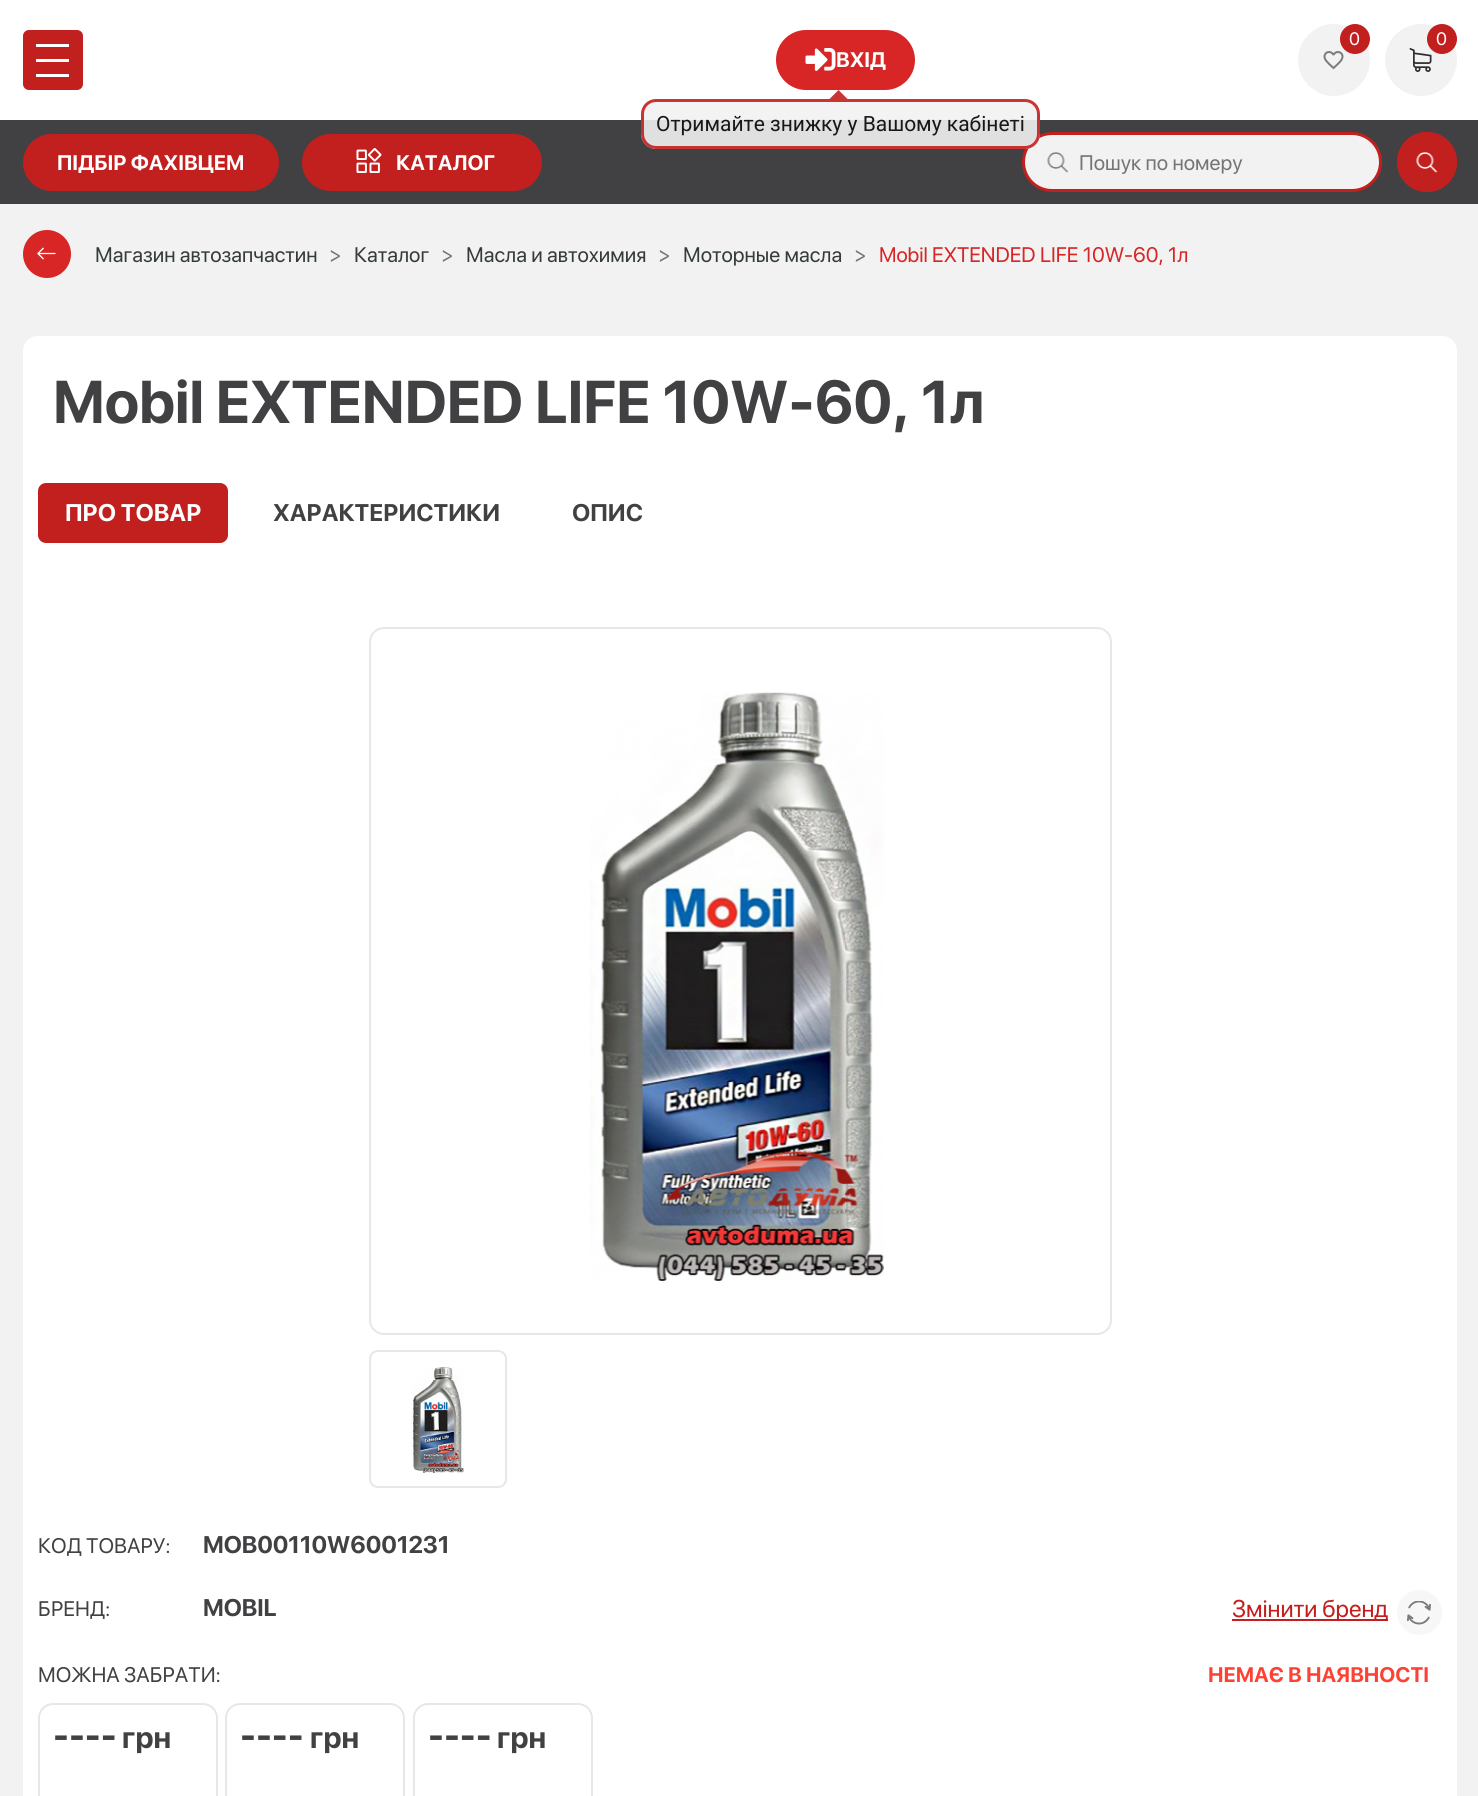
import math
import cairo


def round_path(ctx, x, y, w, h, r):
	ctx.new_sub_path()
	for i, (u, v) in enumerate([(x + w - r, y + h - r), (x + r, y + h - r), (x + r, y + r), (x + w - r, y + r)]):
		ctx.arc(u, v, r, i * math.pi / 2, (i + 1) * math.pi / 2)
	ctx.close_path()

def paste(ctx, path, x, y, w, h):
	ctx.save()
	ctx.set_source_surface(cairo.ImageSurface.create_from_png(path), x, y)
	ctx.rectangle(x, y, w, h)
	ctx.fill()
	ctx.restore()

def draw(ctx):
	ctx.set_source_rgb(0.949, 0.949, 0.949)
	ctx.paint()
	ctx.set_source_rgb(1, 1, 1)
	ctx.rectangle(0, 0, 1478, 120)
	ctx.fill()
	ctx.set_source_rgb(0.761, 0.122, 0.122)
	round_path(ctx, 23, 30, 60, 60, 6)
	ctx.fill()
	ctx.set_source_rgb(1, 1, 1)
	ctx.rectangle(36, 44, 33, 3)
	ctx.rectangle(36, 59, 33, 3)
	ctx.rectangle(36, 74, 33, 3)
	ctx.fill()
	ctx.set_source_rgb(0.949, 0.949, 0.949)
	ctx.arc(1334, 60, 36, 0, 2 * math.pi)
	ctx.fill()
	paste(ctx, 'media/1.png', 1323, 51, 21, 19)
	ctx.set_source_rgb(0.761, 0.122, 0.122)
	ctx.arc(1355, 39, 15, 0, 2 * math.pi)
	ctx.fill()
	ctx.select_font_face('SF Pro Display')
	ctx.set_font_size(18)
	ctx.set_source_rgb(1, 1, 1)
	ctx.move_to(1349, 45)
	ctx.show_text('0')
	ctx.set_source_rgb(0.949, 0.949, 0.949)
	ctx.new_path()
	ctx.arc(1421, 60, 36, 0, 2 * math.pi)
	ctx.fill()
	paste(ctx, 'media/2.png', 1409, 48, 23, 24)
	ctx.set_source_rgb(0.761, 0.122, 0.122)
	ctx.arc(1442, 39, 15, 0, 2 * math.pi)
	ctx.fill()
	ctx.set_source_rgb(1, 1, 1)
	ctx.move_to(1436, 45)
	ctx.show_text('0')
	ctx.set_source_rgb(0.847, 0.145, 0.145)
	round_path(ctx, 776, 30, 139, 60, 30)
	ctx.fill()
	paste(ctx, 'media/3.png', 805, 48, 31, 23)
	ctx.select_font_face('SF Pro Display', cairo.FONT_SLANT_NORMAL, cairo.FONT_WEIGHT_BOLD)
	ctx.set_font_size(21)
	ctx.set_source_rgb(1, 1, 1)
	ctx.move_to(836, 67)
	ctx.show_text('ВХІД')
	ctx.set_source_rgb(0.255, 0.251, 0.259)
	ctx.rectangle(0, 120, 1478, 84)
	ctx.fill()
	ctx.set_source_rgb(0.761, 0.122, 0.122)
	round_path(ctx, 24, 135, 254, 55, 27.5)
	ctx.fill_preserve()
	ctx.stroke()
	ctx.set_source_rgb(1, 1, 1)
	ctx.move_to(57, 170)
	ctx.show_text('ПІДБІР ФАХІВЦЕМ')
	ctx.set_source_rgb(0.761, 0.122, 0.122)
	round_path(ctx, 303, 135, 238, 55, 27.5)
	ctx.fill_preserve()
	ctx.stroke()
	paste(ctx, 'media/4.png', 356, 148, 26, 25)
	ctx.set_source_rgb(1, 1, 1)
	ctx.move_to(396, 170)
	ctx.show_text('КАТАЛОГ')
	ctx.set_source_rgb(0.949, 0.949, 0.949)
	round_path(ctx, 1023.5, 133.5, 357, 57, 28.5)
	ctx.fill_preserve()
	ctx.set_source_rgb(0.761, 0.122, 0.122)
	ctx.set_line_width(3)
	ctx.stroke()
	paste(ctx, 'media/5.png', 1047, 152, 22, 21)
	ctx.select_font_face('SF Pro Display')
	ctx.set_source_rgb(0.459, 0.459, 0.459)
	ctx.move_to(1079, 170)
	ctx.show_text('Пошук по номеру')
	ctx.set_source_rgb(0.761, 0.122, 0.122)
	ctx.new_path()
	ctx.arc(1427, 162, 30, 0, 2 * math.pi)
	ctx.fill()
	paste(ctx, 'media/6.png', 1416, 152, 22, 21)
	ctx.arc(1427, 162, 28.5, 0, 2 * math.pi)
	ctx.stroke()
	ctx.set_source_rgb(0.847, 0.145, 0.145)
	ctx.arc(47, 254, 24, 0, 2 * math.pi)
	ctx.fill()
	paste(ctx, 'media/7.png', 37, 247, 19, 13)
	ctx.set_source_rgb(0.208, 0.231, 0.239)
	ctx.move_to(95, 262)
	ctx.show_text('Магазин автозапчастин')
	ctx.set_source_rgb(0.424, 0.459, 0.49)
	ctx.move_to(329, 262)
	ctx.show_text('>')
	ctx.set_source_rgb(0.208, 0.231, 0.239)
	ctx.move_to(354, 262)
	ctx.show_text('Каталог')
	ctx.set_source_rgb(0.424, 0.459, 0.49)
	ctx.move_to(441, 262)
	ctx.show_text('>')
	ctx.set_source_rgb(0.208, 0.231, 0.239)
	ctx.move_to(466, 262)
	ctx.show_text('Масла и автохимия')
	ctx.set_source_rgb(0.424, 0.459, 0.49)
	ctx.move_to(658, 262)
	ctx.show_text('>')
	ctx.set_source_rgb(0.208, 0.231, 0.239)
	ctx.move_to(683, 262)
	ctx.show_text('Моторные масла')
	ctx.set_source_rgb(0.424, 0.459, 0.49)
	ctx.move_to(854, 262)
	ctx.show_text('>')
	ctx.set_source_rgb(0.847, 0.145, 0.145)
	ctx.move_to(879, 262)
	ctx.show_text('Mobil EXTENDED LIFE 10W-60, 1л')
	ctx.set_source_rgb(1, 1, 1)
	ctx.new_path()
	ctx.move_to(38, 336)
	ctx.line_to(1442, 336)
	ctx.curve_to(1450.5, 336, 1457, 342.5, 1457, 351)
	ctx.line_to(1457, 468)
	ctx.line_to(23, 468)
	ctx.line_to(23, 351)
	ctx.curve_to(23, 342.5, 29.5, 336, 38, 336)
	ctx.close_path()
	ctx.fill()
	ctx.select_font_face('SF Pro Display', cairo.FONT_SLANT_NORMAL, cairo.FONT_WEIGHT_BOLD)
	ctx.set_font_size(60)
	ctx.set_source_rgb(0.255, 0.251, 0.259)
	ctx.move_to(53, 423)
	ctx.show_text('Mobil EXTENDED LIFE 10W-60, 1л')
	ctx.set_source_rgb(1, 1, 1)
	ctx.rectangle(23, 468, 1434, 1328)
	ctx.fill()
	ctx.set_source_rgb(0.761, 0.122, 0.122)
	round_path(ctx, 38, 483, 190, 60, 8)
	ctx.fill()
	ctx.set_font_size(24)
	ctx.set_source_rgb(1, 1, 1)
	ctx.move_to(65, 521)
	ctx.show_text('ПРО ТОВАР')
	ctx.set_source_rgb(0.255, 0.251, 0.259)
	ctx.move_to(273, 521)
	ctx.show_text('ХАРАКТЕРИСТИКИ')
	ctx.move_to(572, 521)
	ctx.show_text('ОПИС')
	round_path(ctx, 370, 628, 741, 706, 14)
	ctx.set_source_rgb(0.906, 0.906, 0.906)
	ctx.set_line_width(2)
	ctx.stroke()
	paste(ctx, 'media/8.png', 590, 692, 294, 589)
	round_path(ctx, 370, 1351, 136, 136, 8)
	ctx.stroke()
	paste(ctx, 'media/9.png', 411, 1367, 53, 106)
	ctx.select_font_face('SF Pro Display')
	ctx.set_font_size(21)
	ctx.set_source_rgb(0.255, 0.251, 0.259)
	ctx.move_to(38, 1553)
	ctx.show_text('КОД ТОВАРУ:')
	ctx.select_font_face('SF Pro Display', cairo.FONT_SLANT_NORMAL, cairo.FONT_WEIGHT_BOLD)
	ctx.set_font_size(24)
	ctx.move_to(203, 1553)
	ctx.show_text('MOB00110W6001231')
	ctx.select_font_face('SF Pro Display')
	ctx.set_font_size(21)
	ctx.move_to(38, 1616)
	ctx.show_text('БРЕНД:')
	ctx.select_font_face('SF Pro Display', cairo.FONT_SLANT_NORMAL, cairo.FONT_WEIGHT_BOLD)
	ctx.set_font_size(24)
	ctx.move_to(203, 1616)
	ctx.show_text('MOBIL')
	ctx.set_source_rgb(0.761, 0.122, 0.122)
	ctx.rectangle(1232, 1619, 156, 2)
	ctx.fill()
	ctx.select_font_face('SF Pro Display')
	ctx.move_to(1232, 1617)
	ctx.show_text('Змінити бренд')
	ctx.set_source_rgb(0.965, 0.965, 0.965)
	ctx.new_path()
	ctx.arc(1419.5, 1612.5, 22.5, 0, 2 * math.pi)
	ctx.fill()
	paste(ctx, 'media/10.png', 1407, 1601, 24, 24)
	ctx.set_font_size(21)
	ctx.set_source_rgb(0.255, 0.251, 0.259)
	ctx.move_to(38, 1682)
	ctx.show_text('МОЖНА ЗАБРАТИ:')
	ctx.select_font_face('SF Pro Display', cairo.FONT_SLANT_NORMAL, cairo.FONT_WEIGHT_BOLD)
	ctx.set_source_rgb(0.992, 0.259, 0.204)
	ctx.move_to(1208, 1682)
	ctx.show_text('НЕМАЄ В НАЯВНОСТІ')
	round_path(ctx, 39, 1704, 178, 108, 14)
	ctx.set_source_rgb(0.906, 0.906, 0.906)
	ctx.stroke()
	ctx.set_font_size(36)
	ctx.set_source_rgb(0.255, 0.251, 0.259)
	ctx.move_to(53, 1748)
	ctx.show_text('----')
	ctx.set_font_size(30)
	ctx.move_to(122, 1748)
	ctx.show_text('грн')
	round_path(ctx, 226, 1704, 178, 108, 14)
	ctx.set_source_rgb(0.906, 0.906, 0.906)
	ctx.stroke()
	ctx.set_font_size(36)
	ctx.set_source_rgb(0.255, 0.251, 0.259)
	ctx.move_to(240, 1748)
	ctx.show_text('----')
	ctx.set_font_size(30)
	ctx.move_to(310, 1748)
	ctx.show_text('грн')
	round_path(ctx, 414, 1704, 178, 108, 14)
	ctx.set_source_rgb(0.906, 0.906, 0.906)
	ctx.stroke()
	ctx.set_font_size(36)
	ctx.set_source_rgb(0.255, 0.251, 0.259)
	ctx.move_to(428, 1748)
	ctx.show_text('----')
	ctx.set_font_size(30)
	ctx.move_to(497, 1748)
	ctx.show_text('грн')
	ctx.set_source_rgb(0.784, 0.208, 0.208)
	ctx.new_path()
	ctx.move_to(847.5, 99)
	ctx.line_to(829.5, 99)
	ctx.line_to(838.5, 90)
	ctx.close_path()
	ctx.fill()
	ctx.set_source_rgba(0.949, 0.949, 0.949, 0.9)
	round_path(ctx, 641, 99, 399, 50, 15)
	ctx.fill()
	round_path(ctx, 642.5, 100.5, 396, 47, 13.5)
	ctx.set_source_rgba(0.761, 0.122, 0.122, 0.9)
	ctx.set_line_width(3)
	ctx.stroke()
	ctx.select_font_face('Roboto')
	ctx.set_font_size(21)
	ctx.set_source_rgb(0.09, 0.09, 0.09)
	ctx.move_to(656, 131)
	ctx.show_text('Отримайте знижку у Вашому кабінеті')


surface = cairo.ImageSurface(cairo.FORMAT_RGB24, 1478, 1796)
ctx = cairo.Context(surface)
options = cairo.FontOptions()
options.set_hint_metrics(cairo.HINT_METRICS_OFF)
options.set_hint_style(cairo.HINT_STYLE_NONE)
ctx.set_font_options(options)
ctx.set_miter_limit(4)
draw(ctx)
surface.write_to_png('image.png')
